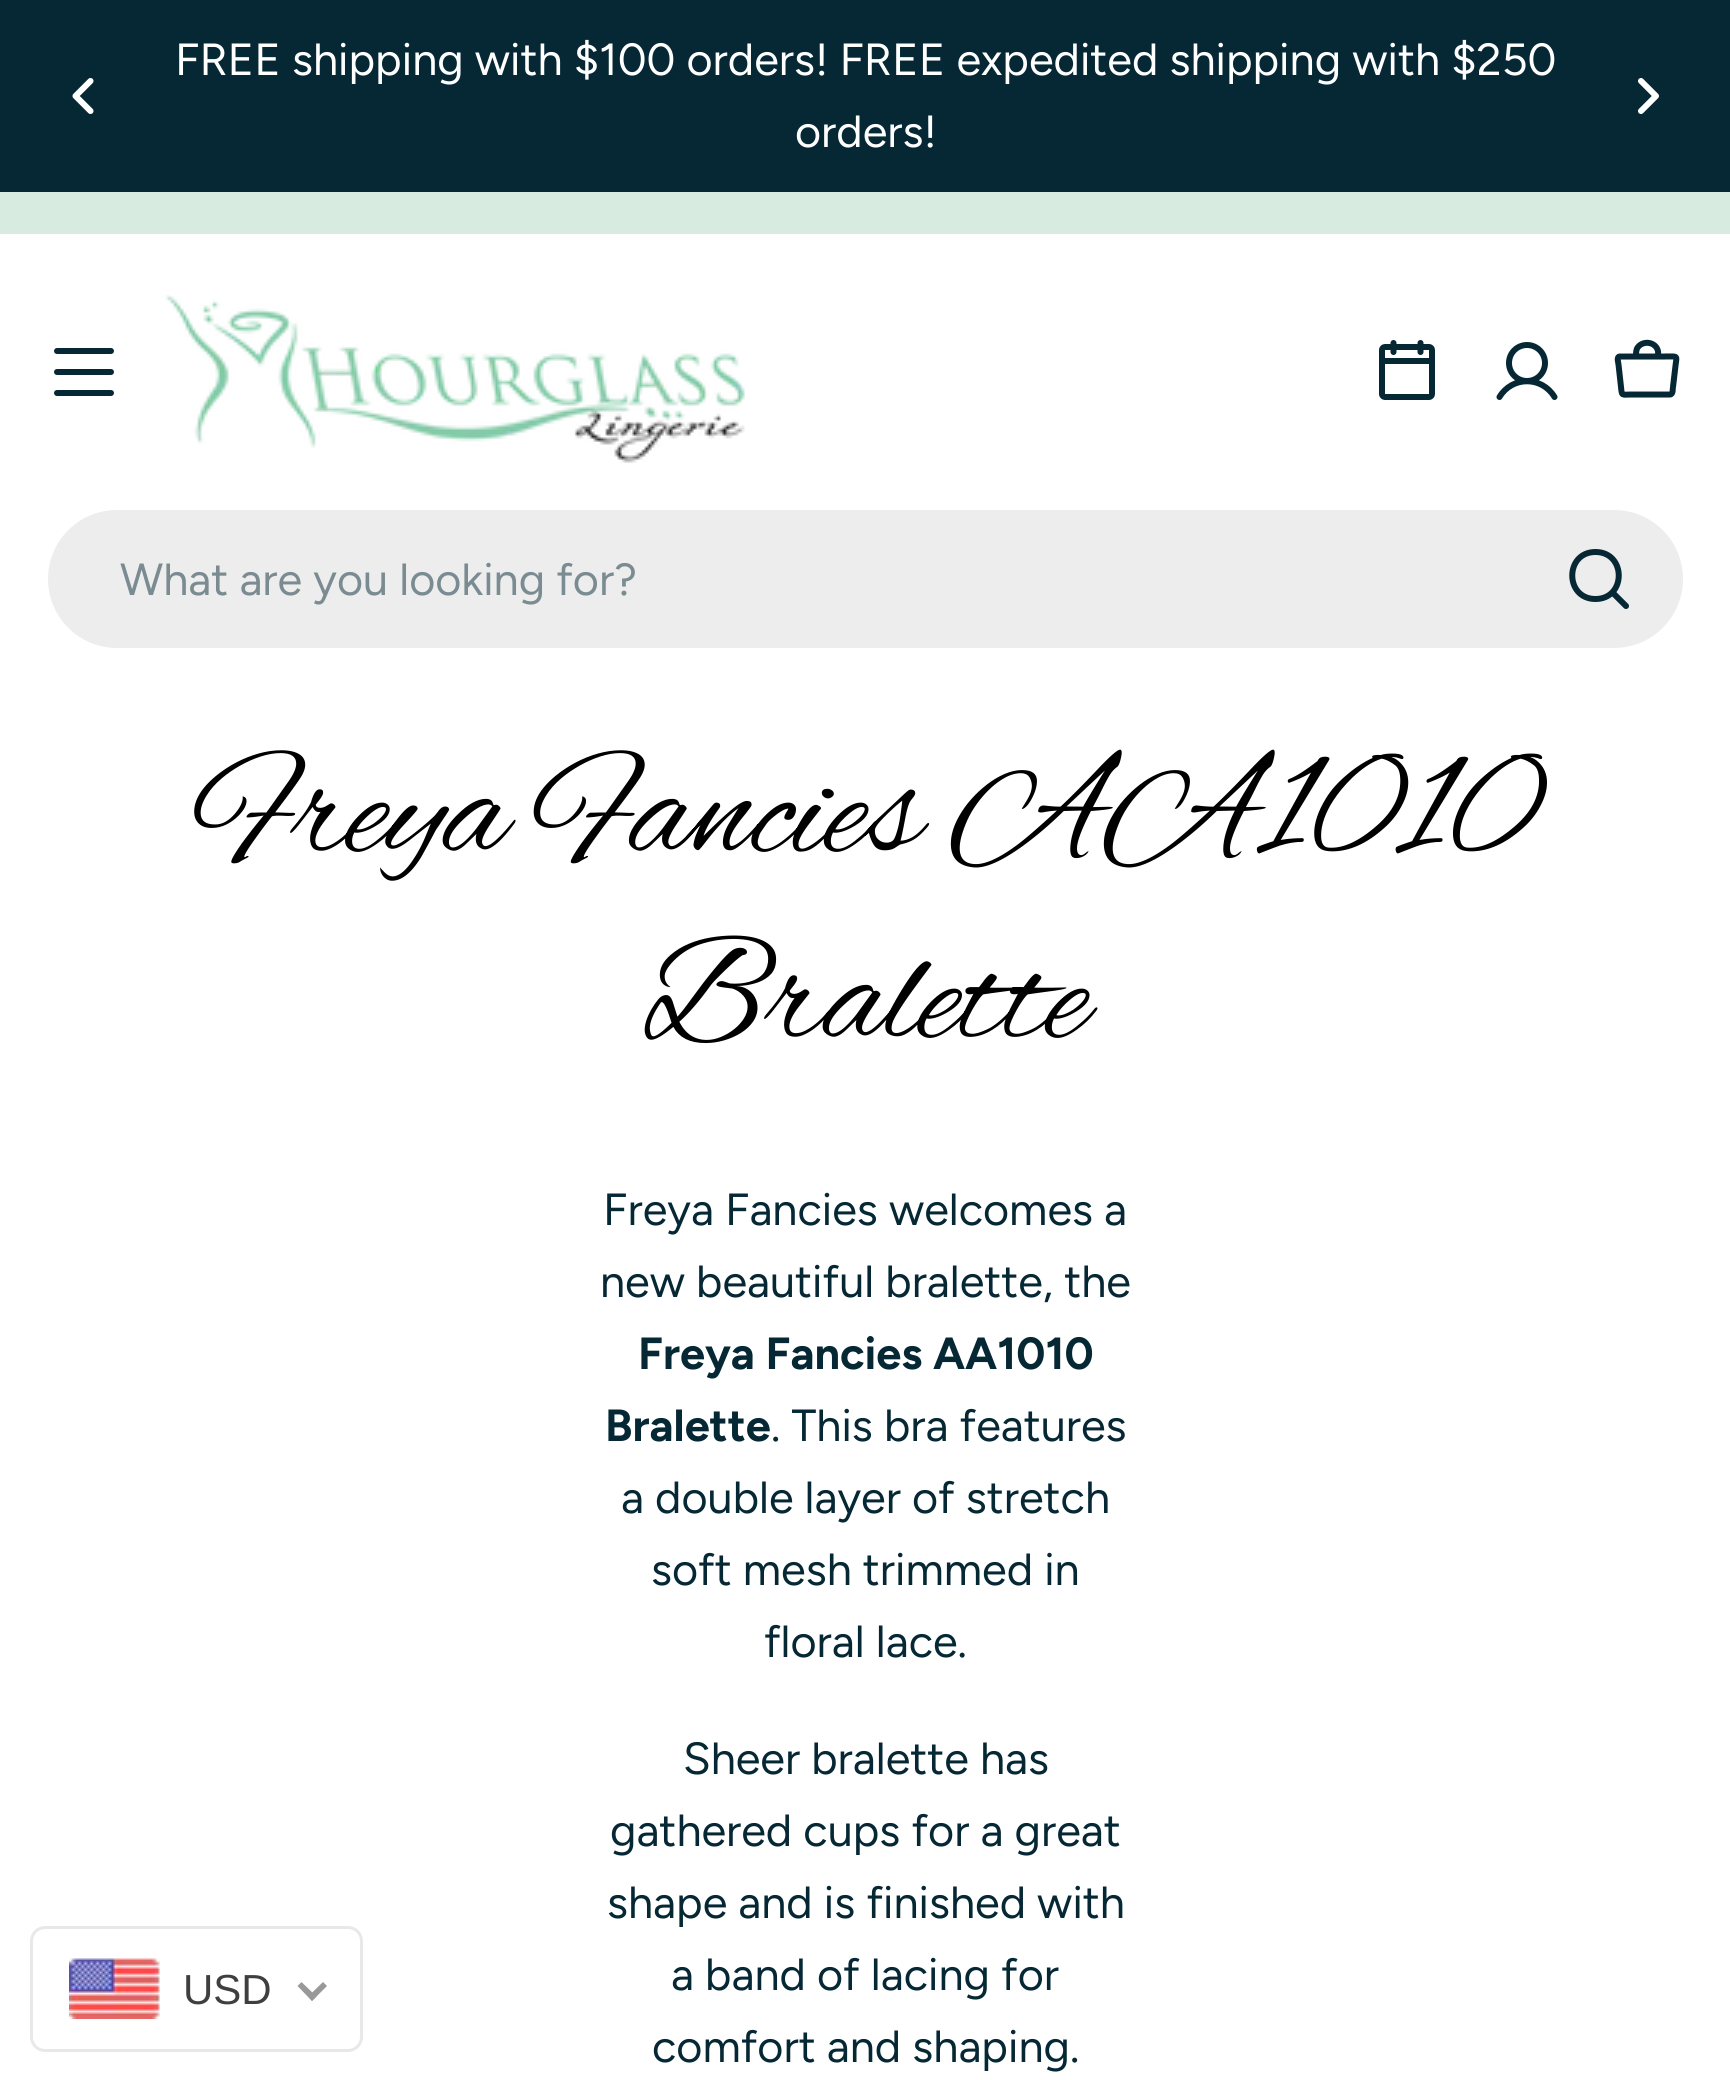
import math
import cairo


def round_path(ctx, x, y, w, h, r):
	ctx.new_sub_path()
	for i, (u, v) in enumerate([(x + w - r, y + h - r), (x + r, y + h - r), (x + r, y + r), (x + w - r, y + r)]):
		ctx.arc(u, v, r, i * math.pi / 2, (i + 1) * math.pi / 2)
	ctx.close_path()

def paste(ctx, path, x, y, w, h):
	ctx.save()
	ctx.set_source_surface(cairo.ImageSurface.create_from_png(path), x, y)
	ctx.rectangle(x, y, w, h)
	ctx.fill()
	ctx.restore()

def draw(ctx):
	ctx.set_source_rgb(1, 1, 1)
	ctx.paint()
	ctx.set_source_rgb(0.027, 0.157, 0.208)
	ctx.rectangle(0, 0, 1730, 192)
	ctx.fill()
	ctx.select_font_face('Figtree Light')
	ctx.set_font_size(45)
	ctx.set_source_rgb(1, 1, 1)
	ctx.move_to(175, 75)
	ctx.show_text('FREE shipping with $100 orders! FREE expedited shipping with $250')
	ctx.move_to(795, 147)
	ctx.show_text('orders!')
	ctx.new_path()
	ctx.move_to(90.5, 111)
	ctx.line_to(75.5, 96)
	ctx.line_to(90.5, 81)
	ctx.set_line_width(6)
	ctx.set_line_cap(cairo.LINE_CAP_ROUND)
	ctx.set_line_join(cairo.LINE_JOIN_ROUND)
	ctx.stroke()
	ctx.new_path()
	ctx.move_to(1641, 81)
	ctx.line_to(1656, 96)
	ctx.line_to(1641, 111)
	ctx.stroke()
	ctx.set_source_rgb(0.847, 0.918, 0.878)
	ctx.rectangle(0, 192, 1730, 42)
	ctx.fill()
	ctx.set_source_rgb(0.027, 0.157, 0.208)
	round_path(ctx, 54, 369, 60, 6, 3)
	ctx.fill()
	round_path(ctx, 54, 348, 60, 6, 3)
	ctx.fill()
	round_path(ctx, 54, 390, 60, 6, 3)
	ctx.fill()
	paste(ctx, 'media/1.png', 165, 294, 580, 169)
	ctx.new_path()
	ctx.move_to(1429.5, 347)
	ctx.line_to(1384.5, 347)
	ctx.curve_to(1383.5, 347, 1382, 348.5, 1382, 349.5)
	ctx.line_to(1382, 394.5)
	ctx.curve_to(1382, 395.5, 1383.5, 397, 1384.5, 397)
	ctx.line_to(1429.5, 397)
	ctx.curve_to(1430.5, 397, 1432, 395.5, 1432, 394.5)
	ctx.line_to(1432, 349.5)
	ctx.curve_to(1432, 348.5, 1430.5, 347, 1429.5, 347)
	ctx.close_path()
	ctx.move_to(1420.5, 343)
	ctx.line_to(1420.5, 352)
	ctx.move_to(1393.5, 343)
	ctx.line_to(1393.5, 352)
	ctx.move_to(1382, 361)
	ctx.line_to(1432, 361)
	ctx.stroke()
	ctx.new_path()
	ctx.move_to(1527, 381)
	ctx.curve_to(1537, 381, 1545, 373, 1545, 363)
	ctx.curve_to(1545, 353, 1537, 345, 1527, 345)
	ctx.curve_to(1517, 345, 1509, 353, 1509, 363)
	ctx.curve_to(1509, 373, 1517, 381, 1527, 381)
	ctx.close_path()
	ctx.move_to(1499.5, 397)
	ctx.curve_to(1512, 376, 1542, 376, 1554.5, 397)
	ctx.stroke()
	ctx.new_path()
	ctx.move_to(1670, 394.5)
	ctx.line_to(1631.5, 394.5)
	ctx.curve_to(1621.5, 394.5, 1622, 396.5, 1621, 387)
	ctx.line_to(1618.5, 364.5)
	ctx.curve_to(1618.5, 363, 1616, 356.5, 1620, 356.5)
	ctx.line_to(1665, 356.5)
	ctx.curve_to(1679.5, 356.5, 1676.5, 354.5, 1675, 370)
	ctx.line_to(1673, 387)
	ctx.curve_to(1672.5, 388, 1673.5, 394.5, 1670, 394.5)
	ctx.close_path()
	ctx.stroke()
	ctx.new_path()
	ctx.move_to(1636, 356)
	ctx.curve_to(1636, 353.5, 1636, 351, 1637, 348.5)
	ctx.curve_to(1641.5, 340.5, 1654, 341, 1657.5, 349.5)
	ctx.curve_to(1658.5, 352, 1658, 354, 1658, 356)
	ctx.stroke()
	ctx.set_source_rgb(0.929, 0.929, 0.929)
	round_path(ctx, 48, 510, 1635, 138, 69)
	ctx.fill()
	ctx.set_source_rgb(0.478, 0.545, 0.569)
	ctx.move_to(120, 595)
	ctx.show_text('What are you looking for?')
	ctx.new_path()
	ctx.move_to(1595.5, 599)
	ctx.curve_to(1626.5, 599, 1626.5, 552, 1595.5, 552)
	ctx.curve_to(1564.5, 552, 1564.5, 599, 1595.5, 599)
	ctx.close_path()
	ctx.move_to(1612.5, 592.5)
	ctx.line_to(1626, 606)
	ctx.set_source_rgb(0.027, 0.157, 0.208)
	ctx.stroke()
	ctx.select_font_face('Alex Brush')
	ctx.set_font_size(150)
	ctx.set_source_rgb(0, 0, 0)
	ctx.move_to(196, 850)
	ctx.show_text('Freya Fancies AA1010')
	ctx.move_to(642, 1036)
	ctx.show_text('Bralette')
	ctx.select_font_face('Figtree Light')
	ctx.set_font_size(45)
	ctx.set_source_rgb(0.027, 0.157, 0.208)
	ctx.move_to(603, 1225)
	ctx.show_text('Freya Fancies welcomes a')
	ctx.move_to(600, 1297)
	ctx.show_text('new beautiful bralette, the')
	ctx.select_font_face('Figtree', cairo.FONT_SLANT_NORMAL, cairo.FONT_WEIGHT_BOLD)
	ctx.move_to(638, 1369)
	ctx.show_text('Freya Fancies AA1010')
	ctx.move_to(605, 1441)
	ctx.show_text('Bralette')
	ctx.select_font_face('Figtree Light')
	for x, y, s in [
		(771, 1441, '. This bra features'),
		(621, 1513, 'a double layer of stretch'),
		(651, 1585, 'soft mesh trimmed in'),
		(764, 1657, 'floral lace.'),
		(683, 1774, 'Sheer bralette has'),
		(610, 1846, 'gathered cups for a great'),
		(607, 1918, 'shape and is finished with'),
		(671, 1990, 'a band of lacing for'),
		(652, 2062, 'comfort and shaping.'),
	]:
		ctx.move_to(x, y)
		ctx.show_text(s)
	round_path(ctx, 31.5, 1927.5, 330, 123, 13.5)
	ctx.set_source_rgb(0.91, 0.91, 0.91)
	ctx.set_line_width(3)
	ctx.set_line_cap(cairo.LINE_CAP_BUTT)
	ctx.set_line_join(cairo.LINE_JOIN_MITER)
	ctx.stroke()
	paste(ctx, 'media/2.png', 69, 1958, 91, 61)
	ctx.select_font_face('Liberation Sans')
	ctx.set_font_size(42)
	ctx.set_source_rgb(0.251, 0.247, 0.247)
	ctx.move_to(183, 2004)
	ctx.show_text('USD')
	ctx.set_source_rgb(0.6, 0.6, 0.6)
	ctx.new_path()
	ctx.move_to(323, 1982)
	ctx.line_to(327, 1986)
	ctx.line_to(312, 2001)
	ctx.line_to(308, 1996.5)
	ctx.close_path()
	ctx.fill()
	ctx.new_path()
	ctx.move_to(301.5, 1982)
	ctx.line_to(316.5, 1996.5)
	ctx.line_to(312, 2001)
	ctx.line_to(297.5, 1986)
	ctx.close_path()
	ctx.fill()


surface = cairo.ImageSurface(cairo.FORMAT_RGB24, 1730, 2080)
ctx = cairo.Context(surface)
options = cairo.FontOptions()
options.set_hint_metrics(cairo.HINT_METRICS_OFF)
options.set_hint_style(cairo.HINT_STYLE_NONE)
ctx.set_font_options(options)
ctx.set_miter_limit(4)
draw(ctx)
surface.write_to_png('image.png')
